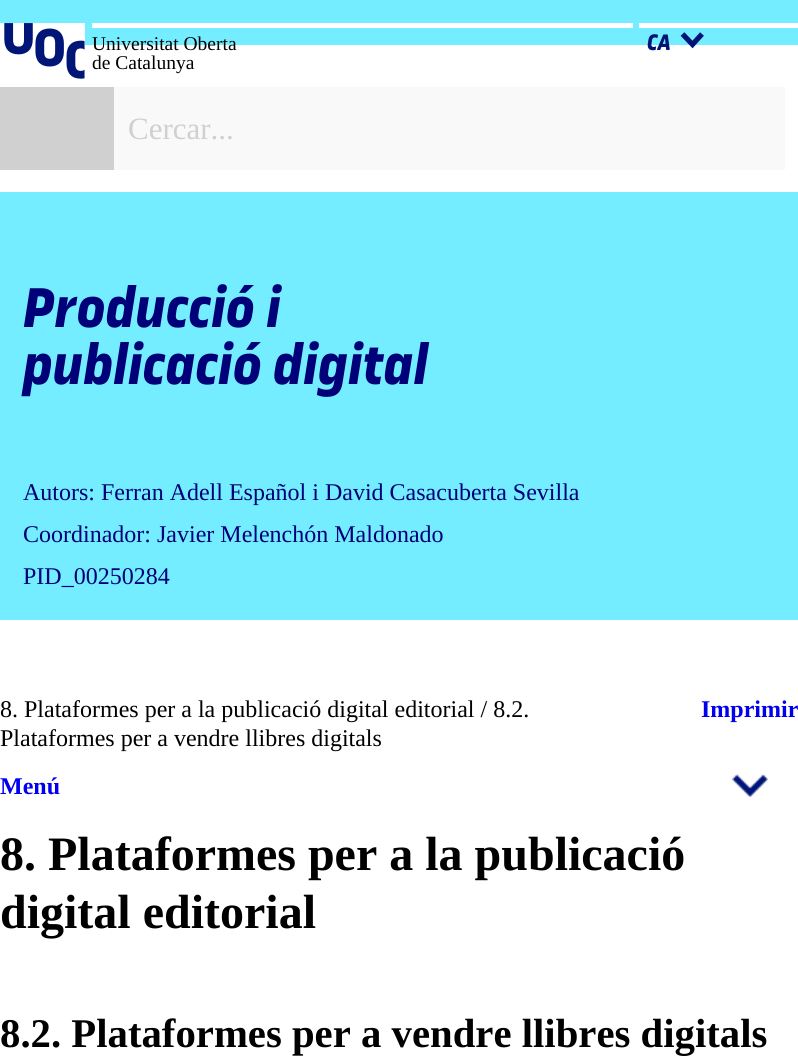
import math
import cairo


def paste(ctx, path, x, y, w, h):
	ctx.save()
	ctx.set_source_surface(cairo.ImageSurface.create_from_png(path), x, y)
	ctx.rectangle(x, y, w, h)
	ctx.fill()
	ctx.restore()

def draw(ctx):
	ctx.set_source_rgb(1, 1, 1)
	ctx.paint()
	ctx.set_source_rgb(0.451, 0.929, 1)
	ctx.rectangle(0, 0, 798, 45)
	ctx.fill()
	paste(ctx, 'media/1.png', 0, 23, 85, 56)
	ctx.set_source_rgb(1, 1, 1)
	ctx.rectangle(92, 23, 541, 5)
	ctx.fill()
	ctx.select_font_face('Liberation Serif')
	ctx.set_font_size(19.5)
	ctx.set_source_rgb(0, 0, 0)
	ctx.move_to(92, 50)
	ctx.show_text('Universitat Oberta')
	ctx.move_to(92, 69)
	ctx.show_text('de Catalunya')
	ctx.set_source_rgb(1, 1, 1)
	ctx.rectangle(639, 23, 159, 5)
	ctx.fill()
	ctx.select_font_face('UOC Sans', cairo.FONT_SLANT_ITALIC, cairo.FONT_WEIGHT_BOLD)
	ctx.set_font_size(24)
	ctx.set_source_rgb(0, 0.082, 0.471)
	ctx.move_to(647, 50)
	ctx.show_text('CA')
	ctx.new_path()
	ctx.move_to(702, 34)
	ctx.line_to(692.5, 44.5)
	ctx.line_to(682.5, 34)
	ctx.set_line_width(5.2)
	ctx.stroke()
	ctx.set_source_rgb(0.816, 0.816, 0.816)
	ctx.rectangle(0, 87, 114, 83)
	ctx.fill()
	ctx.set_source_rgb(0.973, 0.973, 0.973)
	ctx.rectangle(114, 87, 671, 83)
	ctx.fill()
	ctx.select_font_face('Liberation Serif')
	ctx.set_font_size(31)
	ctx.set_source_rgb(0.816, 0.816, 0.816)
	ctx.move_to(128, 139)
	ctx.show_text('Cercar...')
	ctx.set_source_rgb(0.451, 0.929, 1)
	ctx.rectangle(0, 192, 798, 428)
	ctx.fill()
	ctx.select_font_face('UOC Sans', cairo.FONT_SLANT_ITALIC, cairo.FONT_WEIGHT_BOLD)
	ctx.set_font_size(60)
	ctx.set_source_rgb(0, 0, 0.471)
	ctx.move_to(23, 327)
	ctx.show_text('Producció i')
	ctx.move_to(23, 384)
	ctx.show_text('publicació digital')
	ctx.select_font_face('Liberation Serif')
	ctx.set_font_size(24)
	for x, y, s in [
		(23, 500, 'Autors: Ferran Adell Español i David Casacuberta Sevilla'),
		(23, 542, 'Coordinador: Javier Melenchón Maldonado'),
		(23, 584, 'PID_00250284'),
	]:
		ctx.move_to(x, y)
		ctx.show_text(s)
	ctx.set_source_rgb(0, 0, 0)
	ctx.move_to(0, 717)
	ctx.show_text('8. Plataformes per a la publicació digital editorial / 8.2.')
	ctx.move_to(0, 746)
	ctx.show_text('Plataformes per a vendre llibres digitals')
	ctx.select_font_face('Liberation Serif', cairo.FONT_SLANT_NORMAL, cairo.FONT_WEIGHT_BOLD)
	ctx.set_source_rgb(0, 0, 0.933)
	ctx.move_to(701, 717)
	ctx.show_text('Imprimir')
	paste(ctx, 'media/2.png', 732, 774, 36, 23)
	ctx.move_to(0, 794)
	ctx.show_text('Menú')
	ctx.set_font_size(48)
	ctx.set_source_rgb(0, 0, 0)
	ctx.move_to(0, 870)
	ctx.show_text('8. Plataformes per a la publicació')
	ctx.move_to(0, 928)
	ctx.show_text('digital editorial')
	ctx.set_font_size(40.75)
	ctx.move_to(0, 1047)
	ctx.show_text('8.2. Plataformes per a vendre llibres digitals')


surface = cairo.ImageSurface(cairo.FORMAT_RGB24, 798, 1057)
ctx = cairo.Context(surface)
options = cairo.FontOptions()
options.set_hint_metrics(cairo.HINT_METRICS_OFF)
options.set_hint_style(cairo.HINT_STYLE_NONE)
ctx.set_font_options(options)
ctx.set_miter_limit(4)
draw(ctx)
surface.write_to_png('image.png')
